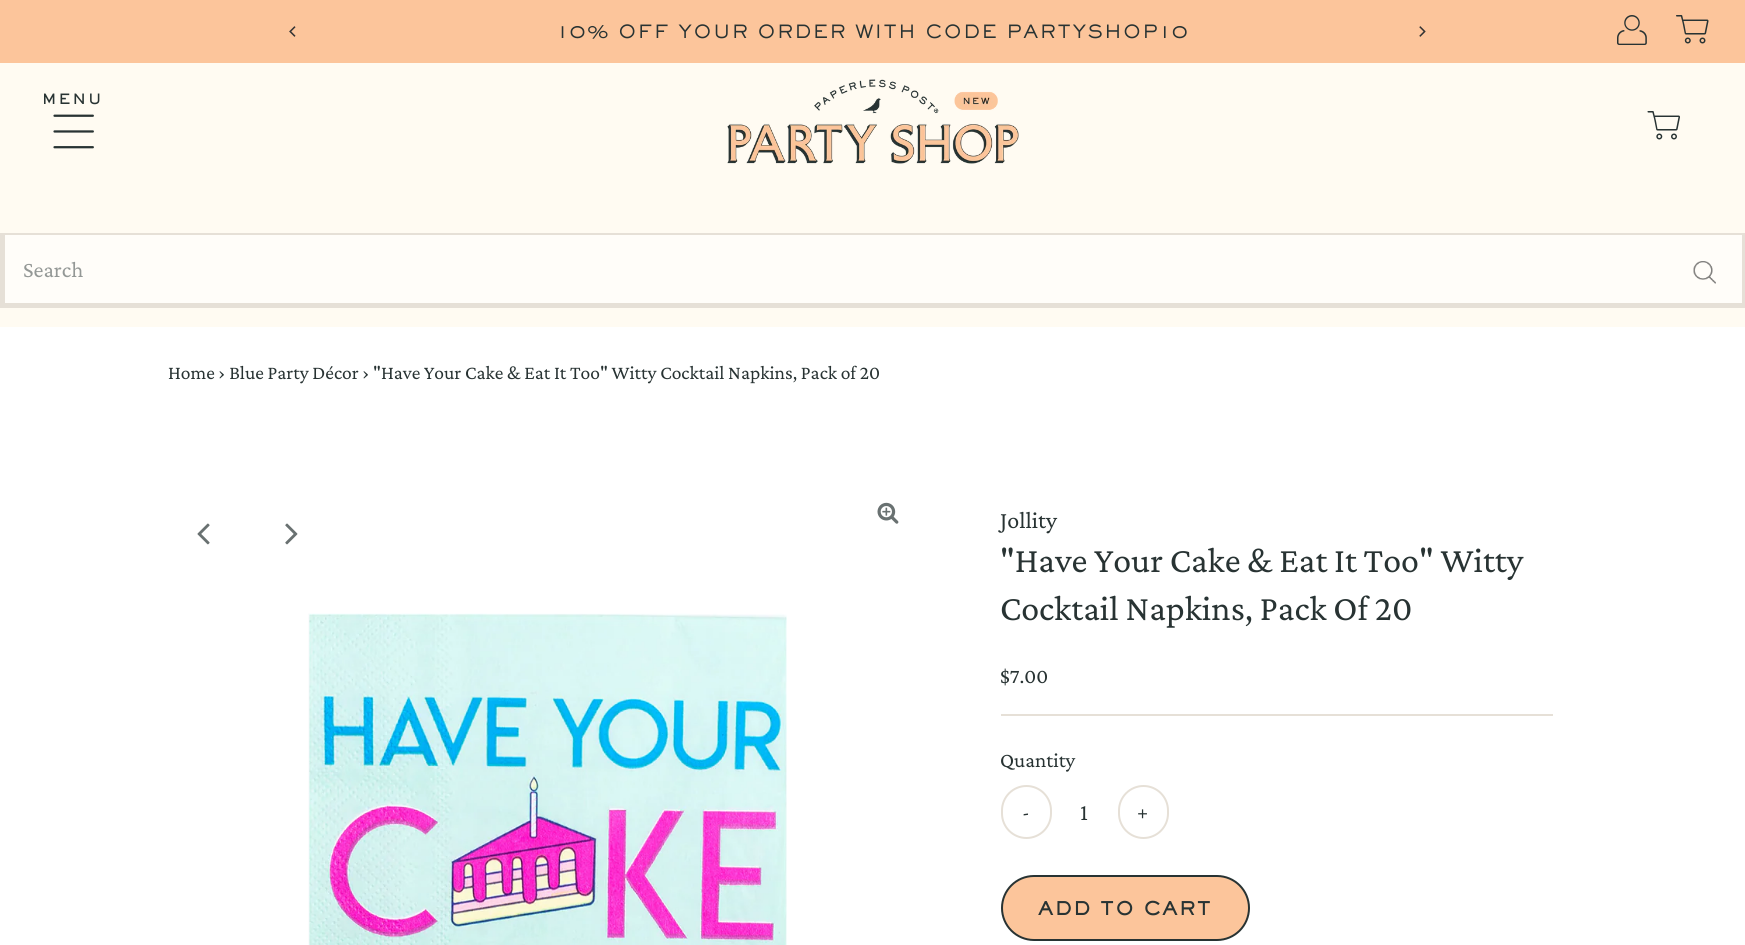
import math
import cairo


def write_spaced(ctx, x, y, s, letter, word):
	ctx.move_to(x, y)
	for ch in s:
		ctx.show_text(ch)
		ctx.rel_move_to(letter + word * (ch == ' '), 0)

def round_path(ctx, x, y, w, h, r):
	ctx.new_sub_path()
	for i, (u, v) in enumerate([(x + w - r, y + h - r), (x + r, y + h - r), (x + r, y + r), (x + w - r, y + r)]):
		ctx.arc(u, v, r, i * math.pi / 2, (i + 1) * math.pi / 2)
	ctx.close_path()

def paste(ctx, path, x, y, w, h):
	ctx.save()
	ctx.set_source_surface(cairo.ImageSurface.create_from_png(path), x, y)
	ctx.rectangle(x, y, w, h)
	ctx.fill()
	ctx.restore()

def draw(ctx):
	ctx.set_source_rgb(1, 1, 1)
	ctx.paint()
	ctx.set_source_rgb(0.988, 0.773, 0.608)
	ctx.rectangle(0, 0, 1745, 63)
	ctx.fill()
	paste(ctx, 'media/1.png', 289, 26, 7, 11)
	ctx.select_font_face('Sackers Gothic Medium')
	ctx.set_font_size(18)
	ctx.set_source_rgb(0.157, 0.2, 0.2)
	write_spaced(ctx, 557, 38, '10% OFF YOUR ORDER WITH CODE PARTYSHOP10', 1.5, 0)
	paste(ctx, 'media/2.png', 1419, 26, 7, 11)
	paste(ctx, 'media/3.png', 1617, 15, 30, 30)
	paste(ctx, 'media/4.png', 1676, 15, 33, 29)
	ctx.set_source_rgb(1, 0.984, 0.949)
	ctx.rectangle(0, 63, 1745, 264)
	ctx.fill()
	ctx.select_font_face('Sackers Gothic', cairo.FONT_SLANT_NORMAL, cairo.FONT_WEIGHT_BOLD)
	ctx.set_font_size(13.5)
	ctx.set_source_rgb(0.157, 0.2, 0.2)
	write_spaced(ctx, 42, 104, 'MENU', 2.5, 0)
	paste(ctx, 'media/5.png', 53, 114, 41, 35)
	paste(ctx, 'media/6.png', 727, 79, 292, 85)
	paste(ctx, 'media/7.png', 1647, 111, 33, 29)
	ctx.set_source_rgb(1, 0.992, 0.973)
	ctx.rectangle(5, 235, 1737, 68)
	ctx.fill()
	ctx.set_source_rgb(0.902, 0.878, 0.843)
	ctx.rectangle(0, 233, 1745, 2)
	ctx.rectangle(1742, 233, 3, 75)
	ctx.rectangle(0, 303, 1745, 5)
	ctx.rectangle(0, 233, 5, 75)
	ctx.fill()
	ctx.select_font_face('Crimson Pro')
	ctx.set_font_size(22.5)
	ctx.set_source_rgb(0.58, 0.596, 0.588)
	ctx.move_to(23, 277)
	ctx.show_text('Search')
	paste(ctx, 'media/8.png', 1693, 261, 23, 23)
	ctx.set_font_size(19.5)
	ctx.set_source_rgb(0.157, 0.2, 0.2)
	ctx.move_to(168, 379)
	ctx.show_text('Home › Blue Party Décor › "Have Your Cake & Eat It Too" Witty Cocktail Napkins, Pack of 20')
	paste(ctx, 'media/9.png', 197, 523, 13, 22)
	paste(ctx, 'media/10.png', 285, 523, 13, 22)
	paste(ctx, 'media/11.png', 877, 502, 22, 22)
	paste(ctx, 'media/12.png', 308, 613, 479, 332)
	ctx.set_font_size(24)
	ctx.move_to(1000, 528)
	ctx.show_text('Jollity')
	ctx.set_font_size(36)
	ctx.move_to(1000, 572)
	ctx.show_text('"Have Your Cake & Eat It Too" Witty')
	ctx.move_to(1000, 620)
	ctx.show_text('Cocktail Napkins, Pack Of 20')
	ctx.set_source_rgb(0.902, 0.878, 0.843)
	ctx.rectangle(1001, 714, 552, 2)
	ctx.fill()
	ctx.set_font_size(21)
	ctx.set_source_rgb(0.157, 0.2, 0.2)
	ctx.move_to(1000, 683)
	ctx.show_text('$7.00')
	ctx.move_to(1000, 767)
	ctx.show_text('Quantity')
	round_path(ctx, 1002, 786, 49, 52, 24.5)
	ctx.set_source_rgb(0.902, 0.878, 0.843)
	ctx.stroke()
	ctx.set_source_rgb(0.157, 0.2, 0.2)
	ctx.move_to(1022, 819)
	ctx.show_text('-')
	ctx.set_font_size(24)
	ctx.move_to(1080, 820)
	ctx.show_text('1')
	round_path(ctx, 1119, 786, 49, 52, 24.5)
	ctx.set_source_rgb(0.902, 0.878, 0.843)
	ctx.stroke()
	ctx.set_font_size(21)
	ctx.set_source_rgb(0.157, 0.2, 0.2)
	ctx.move_to(1137, 819)
	ctx.show_text('+')
	ctx.set_source_rgb(0.988, 0.773, 0.608)
	round_path(ctx, 1002, 876, 247, 64, 32)
	ctx.fill_preserve()
	ctx.set_source_rgb(0.157, 0.2, 0.2)
	ctx.stroke()
	ctx.select_font_face('Sackers Gothic', cairo.FONT_SLANT_NORMAL, cairo.FONT_WEIGHT_BOLD)
	ctx.set_font_size(18)
	write_spaced(ctx, 1038, 915, 'ADD TO CART', 1.75, 0)


surface = cairo.ImageSurface(cairo.FORMAT_RGB24, 1745, 945)
ctx = cairo.Context(surface)
options = cairo.FontOptions()
options.set_hint_metrics(cairo.HINT_METRICS_OFF)
options.set_hint_style(cairo.HINT_STYLE_NONE)
ctx.set_font_options(options)
ctx.set_miter_limit(4)
draw(ctx)
surface.write_to_png('image.png')
